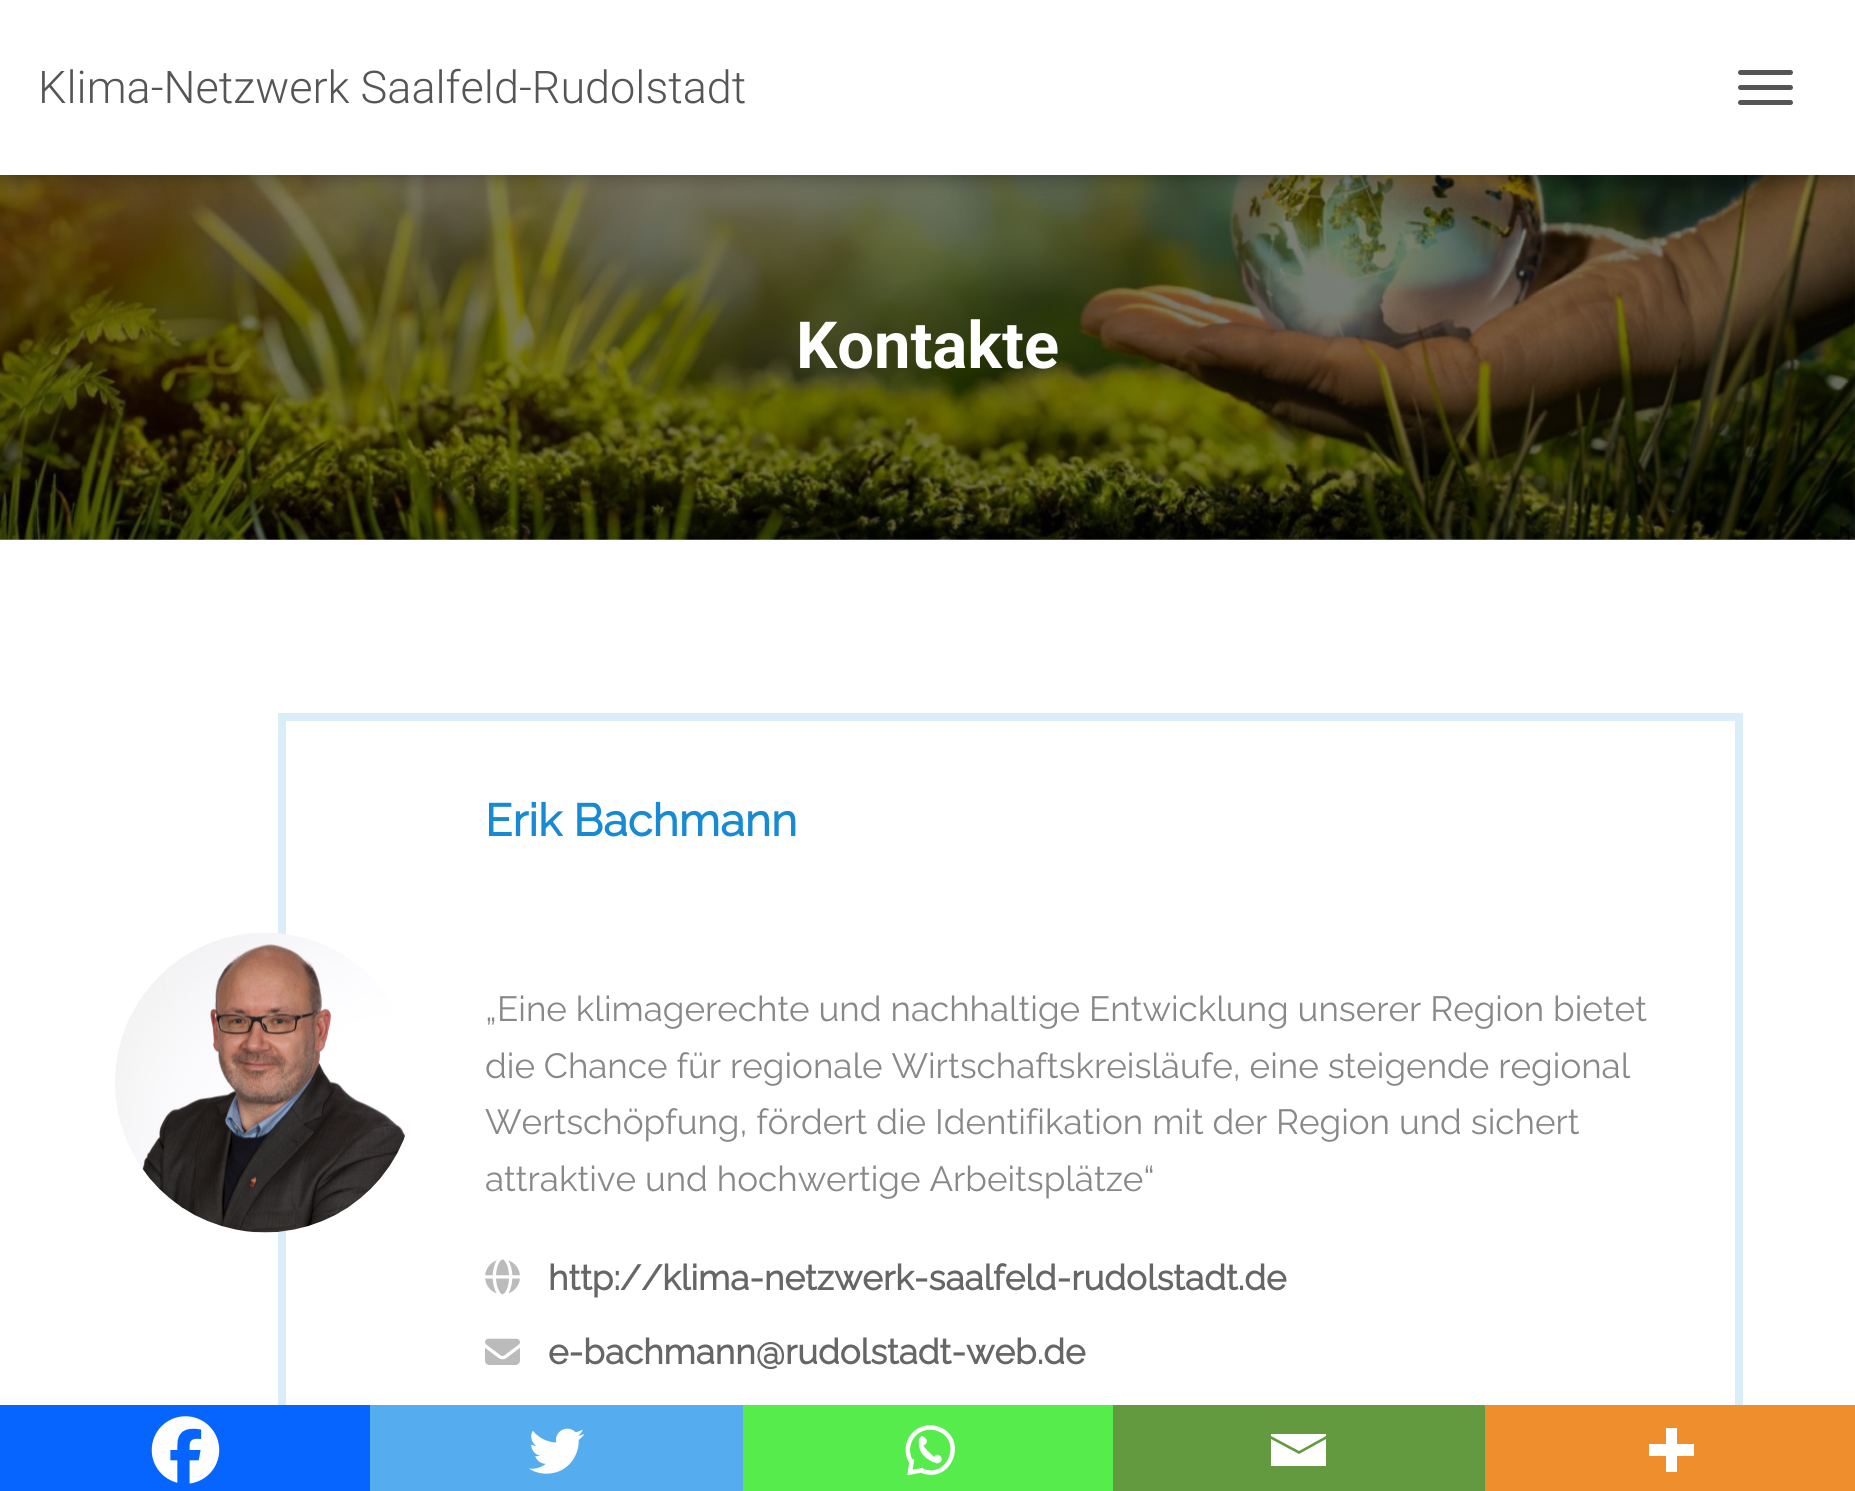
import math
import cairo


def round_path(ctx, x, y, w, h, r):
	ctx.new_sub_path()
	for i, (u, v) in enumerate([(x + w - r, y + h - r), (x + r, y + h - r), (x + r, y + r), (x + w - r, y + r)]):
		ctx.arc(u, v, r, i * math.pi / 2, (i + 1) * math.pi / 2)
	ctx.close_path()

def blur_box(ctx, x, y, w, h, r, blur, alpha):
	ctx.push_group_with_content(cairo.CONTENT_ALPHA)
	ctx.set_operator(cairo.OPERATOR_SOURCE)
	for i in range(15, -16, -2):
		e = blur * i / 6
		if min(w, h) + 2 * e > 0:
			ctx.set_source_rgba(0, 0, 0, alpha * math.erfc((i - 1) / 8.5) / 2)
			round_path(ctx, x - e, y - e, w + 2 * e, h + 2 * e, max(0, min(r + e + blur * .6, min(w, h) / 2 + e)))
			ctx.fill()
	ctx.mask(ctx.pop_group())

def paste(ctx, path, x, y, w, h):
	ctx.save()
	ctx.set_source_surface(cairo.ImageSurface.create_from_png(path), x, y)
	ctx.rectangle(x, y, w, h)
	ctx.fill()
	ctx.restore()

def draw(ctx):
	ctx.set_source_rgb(1, 1, 1)
	ctx.paint()
	paste(ctx, 'media/1.png', 0, 175, 1855, 365)
	ctx.set_source_rgb(0, 0, 0)
	blur_box(ctx, 5, 15, 1845, 165, 0, 6, 0.1)
	blur_box(ctx, 0, 3, 1855, 175, 0, 12.5, 0.12)
	blur_box(ctx, 15, 18, 1825, 145, 0, 12.5, 0.42)
	ctx.set_source_rgb(1, 1, 1)
	ctx.rectangle(0, 0, 1855, 175)
	ctx.fill()
	ctx.select_font_face('Roboto Light')
	ctx.set_font_size(45)
	ctx.set_source_rgb(0.333, 0.333, 0.333)
	ctx.move_to(38, 103)
	ctx.show_text('Klima-Netzwerk Saalfeld-Rudolstadt')
	round_path(ctx, 1738, 70, 55, 5, 2.5)
	ctx.fill()
	round_path(ctx, 1738, 85, 55, 5, 2.5)
	ctx.fill()
	round_path(ctx, 1738, 100, 55, 5, 2.5)
	ctx.fill()
	ctx.select_font_face('Roboto', cairo.FONT_SLANT_NORMAL, cairo.FONT_WEIGHT_BOLD)
	ctx.set_font_size(65)
	ctx.set_source_rgb(1, 1, 1)
	ctx.move_to(796, 368)
	ctx.show_text('Kontakte')
	ctx.rectangle(282, 717, 1457, 729)
	ctx.set_source_rgb(0.855, 0.929, 0.973)
	ctx.set_line_width(8)
	ctx.stroke()
	paste(ctx, 'media/2.png', 115, 933, 291, 300)
	ctx.select_font_face('Raleway', cairo.FONT_SLANT_NORMAL, cairo.FONT_WEIGHT_BOLD)
	ctx.set_font_size(45)
	ctx.set_source_rgb(0.09, 0.541, 0.835)
	ctx.move_to(485, 836)
	ctx.show_text('Erik Bachmann')
	ctx.select_font_face('Raleway Thin')
	ctx.set_font_size(35)
	ctx.set_source_rgb(0.533, 0.533, 0.533)
	for x, y, s in [
		(485, 1021, '„Eine klimagerechte und nachhaltige Entwicklung unserer Region bietet'),
		(485, 1078, 'die Chance für regionale Wirtschaftskreisläufe, eine steigende regional'),
		(485, 1134, 'Wertschöpfung, fördert die Identifikation mit der Region und sichert'),
		(485, 1191, 'attraktive und hochwertige Arbeitsplätze“'),
	]:
		ctx.move_to(x, y)
		ctx.show_text(s)
	paste(ctx, 'media/3.png', 485, 1259, 35, 36)
	ctx.select_font_face('Raleway', cairo.FONT_SLANT_NORMAL, cairo.FONT_WEIGHT_BOLD)
	ctx.set_source_rgb(0.4, 0.4, 0.4)
	ctx.move_to(548, 1290)
	ctx.show_text('http://klima-netzwerk-saalfeld-rudolstadt.de')
	paste(ctx, 'media/4.png', 485, 1338, 35, 27)
	ctx.move_to(548, 1364)
	ctx.show_text('e-bachmann@rudolstadt-web.de')
	ctx.set_source_rgb(0.027, 0.396, 0.996)
	ctx.rectangle(0, 1405, 370, 86)
	ctx.fill()
	paste(ctx, 'media/5.png', 151, 1416, 69, 68)
	ctx.set_source_rgb(0.333, 0.675, 0.933)
	ctx.rectangle(370, 1405, 373, 86)
	ctx.fill()
	paste(ctx, 'media/6.png', 529, 1428, 56, 46)
	ctx.set_source_rgb(0.333, 0.922, 0.298)
	ctx.rectangle(743, 1405, 370, 86)
	ctx.fill()
	ctx.new_path()
	ctx.move_to(922.5, 1471)
	ctx.curve_to(951, 1481.5, 966, 1437.5, 937, 1428.5)
	ctx.curve_to(930.5, 1426.5, 923.5, 1427.5, 918, 1431)
	ctx.curve_to(907.5, 1438, 904.5, 1452.5, 912, 1463)
	ctx.move_to(912, 1459)
	ctx.line_to(910, 1472.5)
	ctx.line_to(923.5, 1470)
	ctx.set_source_rgb(1, 1, 1)
	ctx.set_line_width(4.5)
	ctx.stroke()
	ctx.new_path()
	ctx.move_to(919, 1439)
	ctx.curve_to(917.5, 1451, 923.5, 1459, 937, 1463.5)
	ctx.curve_to(948, 1461, 937, 1450, 934.5, 1457)
	ctx.curve_to(928.5, 1452, 925, 1448.5, 923.5, 1445.5)
	ctx.curve_to(932.5, 1441, 921, 1434, 921, 1436.5)
	ctx.fill()
	ctx.set_source_rgb(0.392, 0.604, 0.247)
	ctx.rectangle(1113, 1405, 372, 86)
	ctx.fill()
	ctx.set_source_rgb(1, 1, 1)
	ctx.new_path()
	ctx.move_to(1269, 1434)
	ctx.line_to(1326, 1434)
	ctx.line_to(1326, 1436)
	ctx.line_to(1299, 1451)
	ctx.line_to(1271, 1436)
	ctx.line_to(1271, 1434)
	ctx.move_to(1271, 1439)
	ctx.line_to(1299, 1454)
	ctx.line_to(1326, 1439)
	ctx.line_to(1326, 1466)
	ctx.line_to(1271, 1466)
	ctx.line_to(1271, 1439)
	ctx.fill()
	ctx.set_source_rgb(0.933, 0.557, 0.176)
	ctx.rectangle(1485, 1405, 370, 86)
	ctx.fill()
	ctx.set_source_rgb(1, 1, 1)
	ctx.set_fill_rule(cairo.FILL_RULE_EVEN_ODD)
	ctx.new_path()
	ctx.move_to(1677, 1444)
	ctx.line_to(1677, 1428)
	ctx.line_to(1666, 1428)
	ctx.line_to(1666, 1444)
	ctx.line_to(1649, 1444)
	ctx.line_to(1649, 1456)
	ctx.line_to(1666, 1456)
	ctx.line_to(1666, 1472)
	ctx.line_to(1677, 1472)
	ctx.line_to(1677, 1456)
	ctx.line_to(1694, 1456)
	ctx.line_to(1694, 1444)
	ctx.close_path()
	ctx.fill()


surface = cairo.ImageSurface(cairo.FORMAT_RGB24, 1855, 1491)
ctx = cairo.Context(surface)
options = cairo.FontOptions()
options.set_hint_metrics(cairo.HINT_METRICS_OFF)
options.set_hint_style(cairo.HINT_STYLE_NONE)
ctx.set_font_options(options)
ctx.set_miter_limit(4)
draw(ctx)
surface.write_to_png('image.png')
